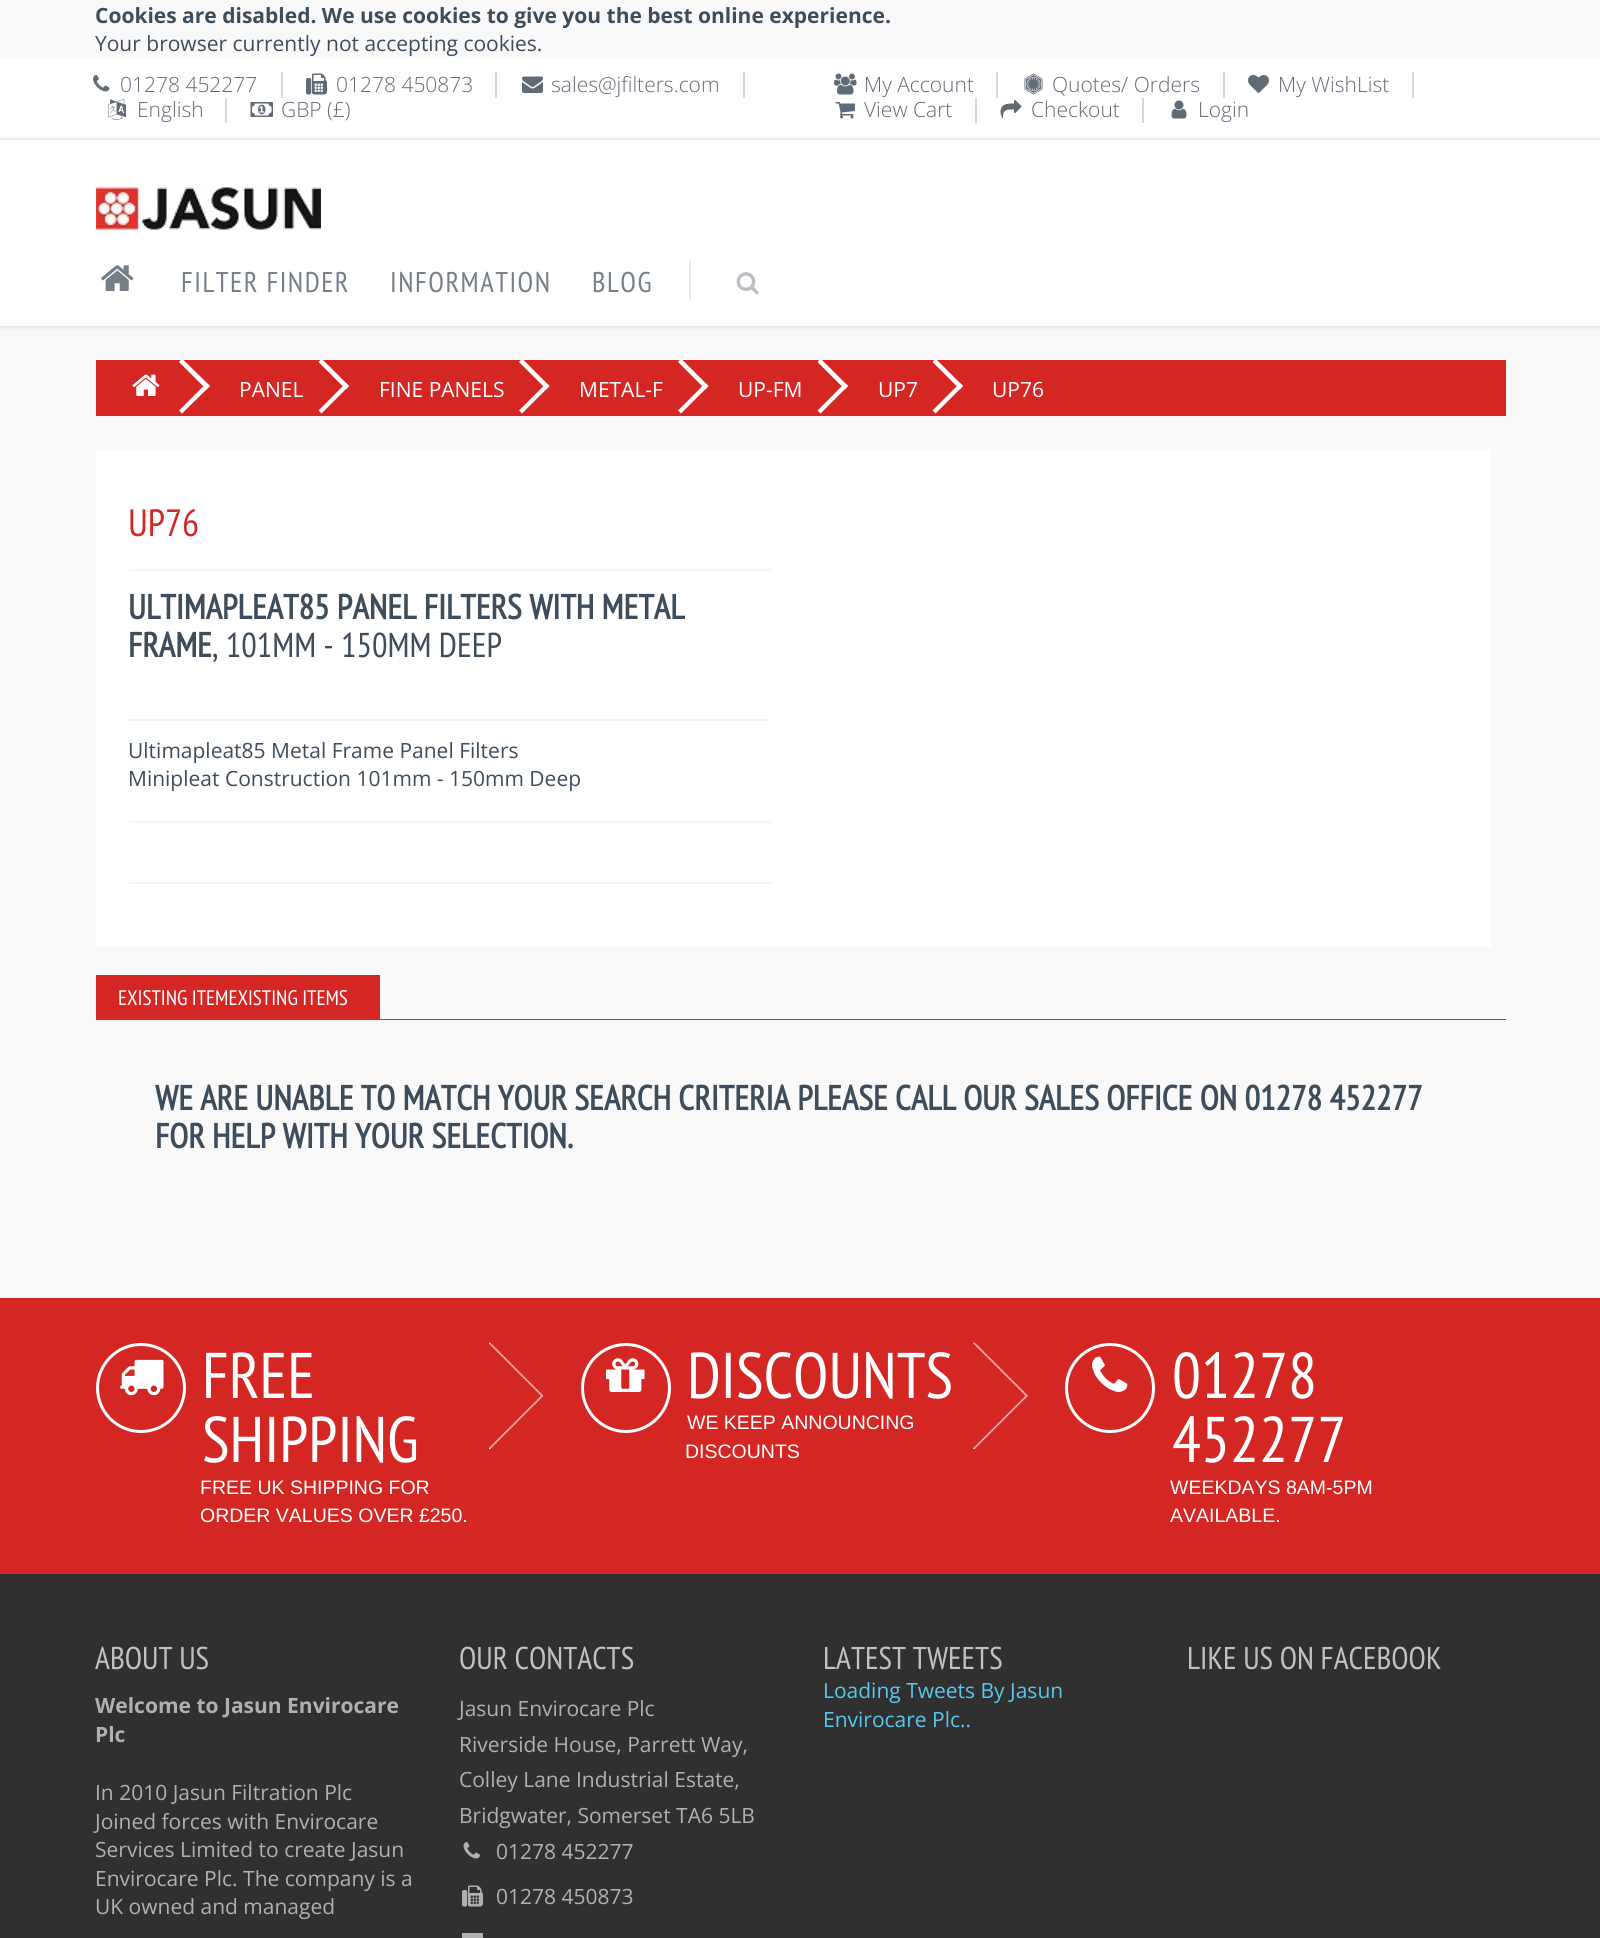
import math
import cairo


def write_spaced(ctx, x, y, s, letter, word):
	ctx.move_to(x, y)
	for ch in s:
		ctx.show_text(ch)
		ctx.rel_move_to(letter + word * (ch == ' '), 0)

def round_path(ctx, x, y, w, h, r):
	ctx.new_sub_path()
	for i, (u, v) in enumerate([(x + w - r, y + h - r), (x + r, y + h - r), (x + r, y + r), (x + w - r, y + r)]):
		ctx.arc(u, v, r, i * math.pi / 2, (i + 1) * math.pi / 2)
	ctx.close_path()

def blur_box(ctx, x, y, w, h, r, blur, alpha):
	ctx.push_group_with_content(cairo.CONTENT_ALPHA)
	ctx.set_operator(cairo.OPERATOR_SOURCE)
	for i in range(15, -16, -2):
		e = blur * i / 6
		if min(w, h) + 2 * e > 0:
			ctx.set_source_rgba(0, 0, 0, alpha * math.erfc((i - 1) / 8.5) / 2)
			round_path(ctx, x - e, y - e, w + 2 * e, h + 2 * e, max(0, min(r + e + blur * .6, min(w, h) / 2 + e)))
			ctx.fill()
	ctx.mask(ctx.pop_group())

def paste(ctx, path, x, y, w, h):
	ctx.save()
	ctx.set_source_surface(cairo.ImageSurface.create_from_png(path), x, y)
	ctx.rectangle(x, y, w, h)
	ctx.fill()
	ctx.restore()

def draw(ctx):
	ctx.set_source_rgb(0.976, 0.976, 0.976)
	ctx.paint()
	ctx.select_font_face('Open Sans', cairo.FONT_SLANT_NORMAL, cairo.FONT_WEIGHT_BOLD)
	ctx.set_font_size(21)
	ctx.set_source_rgb(0.243, 0.302, 0.361)
	ctx.move_to(95, 23)
	ctx.show_text('Cookies are disabled. We use cookies to give you the best online experience.')
	ctx.select_font_face('Open Sans')
	ctx.move_to(95, 51)
	ctx.show_text('Your browser currently not accepting cookies.')
	ctx.set_source_rgb(1, 1, 1)
	ctx.rectangle(0, 57, 1600, 81)
	ctx.fill()
	ctx.set_source_rgb(0.933, 0.933, 0.933)
	ctx.rectangle(0, 138, 1600, 2)
	ctx.fill()
	ctx.set_source_rgb(0.847, 0.847, 0.847)
	ctx.rectangle(281, 72, 2, 26)
	ctx.fill()
	paste(ctx, 'media/1.png', 93, 75, 17, 17)
	ctx.select_font_face('Open Sans Light')
	ctx.set_source_rgb(0.38, 0.42, 0.463)
	ctx.move_to(120, 92)
	ctx.show_text('01278 452277')
	ctx.set_source_rgb(0.847, 0.847, 0.847)
	ctx.rectangle(495, 72, 2, 26)
	ctx.fill()
	paste(ctx, 'media/2.png', 306, 73, 21, 22)
	ctx.set_source_rgb(0.38, 0.42, 0.463)
	ctx.move_to(336, 92)
	ctx.show_text('01278 450873')
	ctx.set_source_rgb(0.847, 0.847, 0.847)
	ctx.rectangle(743, 72, 2, 26)
	ctx.fill()
	paste(ctx, 'media/3.png', 522, 76, 21, 17)
	ctx.set_source_rgb(0.38, 0.42, 0.463)
	ctx.move_to(551, 92)
	ctx.show_text('sales@jfilters.com')
	ctx.set_source_rgb(0.847, 0.847, 0.847)
	ctx.rectangle(225, 98, 2, 25)
	ctx.fill()
	paste(ctx, 'media/4.png', 108, 99, 18, 21)
	ctx.set_source_rgb(0.38, 0.42, 0.463)
	ctx.move_to(137, 117)
	ctx.show_text('English')
	paste(ctx, 'media/5.png', 250, 102, 23, 15)
	ctx.move_to(281, 117)
	ctx.show_text('GBP (£)')
	ctx.set_source_rgb(0.847, 0.847, 0.847)
	ctx.rectangle(996, 72, 2, 26)
	ctx.fill()
	paste(ctx, 'media/6.png', 834, 73, 23, 22)
	ctx.set_source_rgb(0.38, 0.42, 0.463)
	ctx.move_to(864, 92)
	ctx.show_text('My Account')
	ctx.set_source_rgb(0.847, 0.847, 0.847)
	ctx.rectangle(1223, 72, 2, 26)
	ctx.fill()
	paste(ctx, 'media/7.png', 1024, 73, 19, 22)
	ctx.set_source_rgb(0.38, 0.42, 0.463)
	ctx.move_to(1052, 92)
	ctx.show_text('Quotes/ Orders')
	ctx.set_source_rgb(0.847, 0.847, 0.847)
	ctx.rectangle(1412, 72, 2, 26)
	ctx.fill()
	paste(ctx, 'media/8.png', 1248, 75, 21, 18)
	ctx.set_source_rgb(0.38, 0.42, 0.463)
	ctx.move_to(1278, 92)
	ctx.show_text('My WishList')
	ctx.set_source_rgb(0.847, 0.847, 0.847)
	ctx.rectangle(975, 98, 2, 25)
	ctx.fill()
	paste(ctx, 'media/9.png', 835, 102, 20, 17)
	ctx.set_source_rgb(0.38, 0.42, 0.463)
	ctx.move_to(864, 117)
	ctx.show_text('View Cart')
	ctx.set_source_rgb(0.847, 0.847, 0.847)
	ctx.rectangle(1142, 98, 2, 25)
	ctx.fill()
	paste(ctx, 'media/10.png', 1000, 99, 22, 20)
	ctx.set_source_rgb(0.38, 0.42, 0.463)
	ctx.move_to(1031, 117)
	ctx.show_text('Checkout')
	paste(ctx, 'media/11.png', 1171, 100, 16, 19)
	ctx.move_to(1198, 117)
	ctx.show_text('Login')
	ctx.set_source_rgb(0.867, 0.867, 0.867)
	blur_box(ctx, 0, 141, 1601, 186, 0, 2, 1)
	ctx.set_source_rgb(1, 1, 1)
	ctx.rectangle(0, 140, 1600, 186)
	ctx.fill()
	paste(ctx, 'media/12.png', 96, 187, 225, 43)
	paste(ctx, 'media/13.png', 101, 265, 33, 26)
	ctx.select_font_face('PT Sans Narrow')
	ctx.set_font_size(28.5)
	ctx.set_source_rgb(0.463, 0.498, 0.533)
	for x, y, s in [
		(181, 292, 'FILTER FINDER'),
		(390, 292, 'INFORMATION'),
		(592, 292, 'BLOG'),
	]:
		write_spaced(ctx, x, y, s, 1.5, 0)
	ctx.set_source_rgb(0.918, 0.918, 0.918)
	ctx.rectangle(689, 261, 2, 39)
	ctx.fill()
	paste(ctx, 'media/14.png', 736, 272, 23, 23)
	ctx.set_source_rgb(0.831, 0.153, 0.137)
	ctx.rectangle(96, 360, 1410, 56)
	ctx.fill()
	paste(ctx, 'media/15.png', 132, 374, 28, 22)
	ctx.set_source_rgb(1, 1, 1)
	ctx.new_path()
	ctx.move_to(179, 362)
	ctx.line_to(182, 358.5)
	ctx.line_to(210, 386)
	ctx.line_to(206.5, 389.5)
	ctx.close_path()
	ctx.fill()
	ctx.new_path()
	ctx.move_to(179, 410.5)
	ctx.line_to(206.5, 383)
	ctx.line_to(210, 386)
	ctx.line_to(182, 413.5)
	ctx.close_path()
	ctx.fill()
	ctx.select_font_face('Open Sans')
	ctx.set_font_size(21)
	ctx.move_to(239, 397)
	ctx.show_text('PANEL')
	ctx.new_path()
	ctx.move_to(318.5, 362)
	ctx.line_to(321.5, 358.5)
	ctx.line_to(349, 386)
	ctx.line_to(346, 389.5)
	ctx.close_path()
	ctx.fill()
	ctx.new_path()
	ctx.move_to(318.5, 410.5)
	ctx.line_to(346, 383)
	ctx.line_to(349, 386)
	ctx.line_to(321.5, 413.5)
	ctx.close_path()
	ctx.fill()
	ctx.move_to(379, 397)
	ctx.show_text('FINE PANELS')
	ctx.new_path()
	ctx.move_to(519, 362)
	ctx.line_to(522, 358.5)
	ctx.line_to(549.5, 386)
	ctx.line_to(546.5, 389.5)
	ctx.close_path()
	ctx.fill()
	ctx.new_path()
	ctx.move_to(519, 410.5)
	ctx.line_to(546.5, 383)
	ctx.line_to(549.5, 386)
	ctx.line_to(522, 413.5)
	ctx.close_path()
	ctx.fill()
	ctx.move_to(579, 397)
	ctx.show_text('METAL-F')
	ctx.new_path()
	ctx.move_to(678, 362)
	ctx.line_to(681, 358.5)
	ctx.line_to(708.5, 386)
	ctx.line_to(705.5, 389.5)
	ctx.close_path()
	ctx.fill()
	ctx.new_path()
	ctx.move_to(678, 410.5)
	ctx.line_to(705.5, 383)
	ctx.line_to(708.5, 386)
	ctx.line_to(681, 413.5)
	ctx.close_path()
	ctx.fill()
	ctx.move_to(738, 397)
	ctx.show_text('UP-FM')
	ctx.new_path()
	ctx.move_to(817.5, 362)
	ctx.line_to(820.5, 358.5)
	ctx.line_to(848, 386)
	ctx.line_to(845, 389.5)
	ctx.close_path()
	ctx.fill()
	ctx.new_path()
	ctx.move_to(817.5, 410.5)
	ctx.line_to(845, 383)
	ctx.line_to(848, 386)
	ctx.line_to(820.5, 413.5)
	ctx.close_path()
	ctx.fill()
	ctx.move_to(878, 397)
	ctx.show_text('UP7')
	ctx.new_path()
	ctx.move_to(932.5, 362)
	ctx.line_to(935.5, 358.5)
	ctx.line_to(963, 386)
	ctx.line_to(960, 389.5)
	ctx.close_path()
	ctx.fill()
	ctx.new_path()
	ctx.move_to(932.5, 410.5)
	ctx.line_to(960, 383)
	ctx.line_to(963, 386)
	ctx.line_to(935.5, 413.5)
	ctx.close_path()
	ctx.fill()
	ctx.move_to(992, 397)
	ctx.show_text('UP76')
	ctx.rectangle(96, 449, 1395, 498)
	ctx.fill()
	ctx.set_source_rgb(0.957, 0.957, 0.957)
	ctx.rectangle(129, 569, 642, 2)
	ctx.fill()
	ctx.select_font_face('PT Sans Narrow')
	ctx.set_font_size(38)
	ctx.set_source_rgb(0.831, 0.153, 0.137)
	ctx.move_to(128, 536)
	ctx.show_text('UP76')
	ctx.set_source_rgb(0.957, 0.957, 0.957)
	ctx.rectangle(129, 719, 642, 2)
	ctx.fill()
	ctx.select_font_face('PT Sans Narrow', cairo.FONT_SLANT_NORMAL, cairo.FONT_WEIGHT_BOLD)
	ctx.set_font_size(34.5)
	ctx.set_source_rgb(0.243, 0.302, 0.361)
	ctx.move_to(128, 619)
	ctx.show_text('ULTIMAPLEAT85 PANEL FILTERS WITH METAL')
	ctx.move_to(128, 657)
	ctx.show_text('FRAME')
	ctx.select_font_face('PT Sans Narrow')
	ctx.move_to(212, 657)
	ctx.show_text(', 101MM - 150MM DEEP')
	ctx.select_font_face('Open Sans')
	ctx.set_font_size(21)
	ctx.move_to(128, 758)
	ctx.show_text('Ultimapleat85 Metal Frame Panel Filters')
	ctx.move_to(128, 786)
	ctx.show_text('Minipleat Construction 101mm - 150mm Deep')
	ctx.set_source_rgb(0.957, 0.957, 0.957)
	ctx.rectangle(129, 821, 642, 2)
	ctx.rectangle(129, 882, 642, 2)
	ctx.fill()
	ctx.set_source_rgb(0.831, 0.153, 0.137)
	ctx.rectangle(96, 1019, 1410, 1)
	ctx.rectangle(96, 975, 284, 44)
	ctx.fill()
	ctx.select_font_face('PT Sans Narrow')
	ctx.set_source_rgb(1, 1, 1)
	ctx.move_to(118, 1005)
	ctx.show_text('EXISTING ITEMEXISTING ITEMS')
	ctx.select_font_face('PT Sans Narrow', cairo.FONT_SLANT_NORMAL, cairo.FONT_WEIGHT_BOLD)
	ctx.set_font_size(34.5)
	ctx.set_source_rgb(0.243, 0.302, 0.361)
	ctx.move_to(155, 1110)
	ctx.show_text('WE ARE UNABLE TO MATCH YOUR SEARCH CRITERIA PLEASE CALL OUR SALES OFFICE ON 01278 452277')
	ctx.move_to(155, 1148)
	ctx.show_text('FOR HELP WITH YOUR SELECTION.')
	ctx.set_source_rgb(0.831, 0.153, 0.137)
	ctx.rectangle(0, 1298, 1600, 276)
	ctx.fill()
	ctx.arc(141, 1388, 43.5, 0, 2 * math.pi)
	ctx.set_source_rgb(1, 1, 1)
	ctx.set_line_width(3)
	ctx.stroke()
	paste(ctx, 'media/16.png', 120, 1359, 44, 37)
	ctx.select_font_face('PT Sans Narrow')
	ctx.set_font_size(64.5)
	ctx.move_to(202, 1398)
	ctx.show_text('FREE')
	ctx.move_to(202, 1462)
	ctx.show_text('SHIPPING')
	ctx.select_font_face('Liberation Sans')
	ctx.set_font_size(19.5)
	ctx.move_to(200, 1494)
	ctx.show_text('FREE UK SHIPPING FOR')
	ctx.move_to(200, 1522)
	ctx.show_text('ORDER VALUES OVER £250.')
	paste(ctx, 'media/17.png', 489, 1342, 54, 107)
	ctx.arc(626, 1388, 43.5, 0, 2 * math.pi)
	ctx.stroke()
	paste(ctx, 'media/18.png', 606, 1358, 39, 34)
	ctx.select_font_face('PT Sans Narrow')
	ctx.set_font_size(64.5)
	ctx.move_to(687, 1398)
	ctx.show_text('DISCOUNTS')
	ctx.select_font_face('Liberation Sans')
	ctx.set_font_size(19.5)
	ctx.move_to(687, 1429)
	ctx.show_text('WE KEEP ANNOUNCING')
	ctx.move_to(685, 1458)
	ctx.show_text('DISCOUNTS')
	paste(ctx, 'media/19.png', 973, 1342, 55, 107)
	ctx.arc(1110, 1388, 43.5, 0, 2 * math.pi)
	ctx.stroke()
	paste(ctx, 'media/20.png', 1092, 1356, 36, 36)
	ctx.select_font_face('PT Sans Narrow')
	ctx.set_font_size(64.5)
	ctx.move_to(1172, 1398)
	ctx.show_text('01278')
	ctx.move_to(1172, 1462)
	ctx.show_text('452277')
	ctx.select_font_face('Liberation Sans')
	ctx.set_font_size(19.5)
	ctx.move_to(1170, 1494)
	ctx.show_text('WEEKDAYS 8AM-5PM')
	ctx.move_to(1170, 1522)
	ctx.show_text('AVAILABLE.')
	ctx.set_source_rgb(0.192, 0.188, 0.188)
	ctx.rectangle(0, 1574, 1600, 364)
	ctx.fill()
	ctx.select_font_face('PT Sans Narrow')
	ctx.set_font_size(31.5)
	ctx.set_source_rgb(0.761, 0.757, 0.757)
	ctx.move_to(95, 1669)
	ctx.show_text('ABOUT US')
	ctx.select_font_face('Open Sans', cairo.FONT_SLANT_NORMAL, cairo.FONT_WEIGHT_BOLD)
	ctx.set_font_size(21)
	ctx.set_source_rgb(0.69, 0.69, 0.69)
	ctx.move_to(95, 1713)
	ctx.show_text('Welcome to Jasun Envirocare')
	ctx.move_to(95, 1742)
	ctx.show_text('Plc')
	ctx.select_font_face('Open Sans')
	for x, y, s in [
		(95, 1800, 'In 2010 Jasun Filtration Plc'),
		(95, 1829, 'Joined forces with Envirocare'),
		(95, 1857, 'Services Limited to create Jasun'),
		(95, 1886, 'Envirocare Plc. The company is a'),
		(95, 1914, 'UK owned and managed'),
	]:
		ctx.move_to(x, y)
		ctx.show_text(s)
	ctx.select_font_face('PT Sans Narrow')
	ctx.set_font_size(31.5)
	ctx.set_source_rgb(0.761, 0.757, 0.757)
	ctx.move_to(459, 1669)
	ctx.show_text('OUR CONTACTS')
	ctx.select_font_face('Open Sans')
	ctx.set_font_size(21)
	ctx.set_source_rgb(0.69, 0.69, 0.69)
	for x, y, s in [
		(459, 1716, 'Jasun Envirocare Plc'),
		(459, 1752, 'Riverside House, Parrett Way,'),
		(459, 1787, 'Colley Lane Industrial Estate,'),
		(459, 1823, 'Bridgwater, Somerset TA6 5LB'),
	]:
		ctx.move_to(x, y)
		ctx.show_text(s)
	paste(ctx, 'media/21.png', 463, 1842, 17, 17)
	ctx.move_to(496, 1859)
	ctx.show_text('01278 452277')
	paste(ctx, 'media/22.png', 462, 1885, 21, 22)
	ctx.move_to(496, 1904)
	ctx.show_text('01278 450873')
	ctx.rectangle(462, 1933, 21, 5)
	ctx.fill()
	ctx.select_font_face('PT Sans Narrow')
	ctx.set_font_size(31.5)
	ctx.set_source_rgb(0.761, 0.757, 0.757)
	ctx.move_to(823, 1669)
	ctx.show_text('LATEST TWEETS')
	ctx.select_font_face('Open Sans')
	ctx.set_font_size(21)
	ctx.set_source_rgb(0.341, 0.784, 0.922)
	ctx.move_to(823, 1698)
	ctx.show_text('Loading Tweets By Jasun')
	ctx.move_to(823, 1727)
	ctx.show_text('Envirocare Plc..')
	ctx.select_font_face('PT Sans Narrow')
	ctx.set_font_size(31.5)
	ctx.set_source_rgb(0.761, 0.757, 0.757)
	ctx.move_to(1187, 1669)
	ctx.show_text('LIKE US ON FACEBOOK')


surface = cairo.ImageSurface(cairo.FORMAT_RGB24, 1600, 1938)
ctx = cairo.Context(surface)
options = cairo.FontOptions()
options.set_hint_metrics(cairo.HINT_METRICS_OFF)
options.set_hint_style(cairo.HINT_STYLE_NONE)
ctx.set_font_options(options)
ctx.set_miter_limit(4)
draw(ctx)
surface.write_to_png('image.png')
